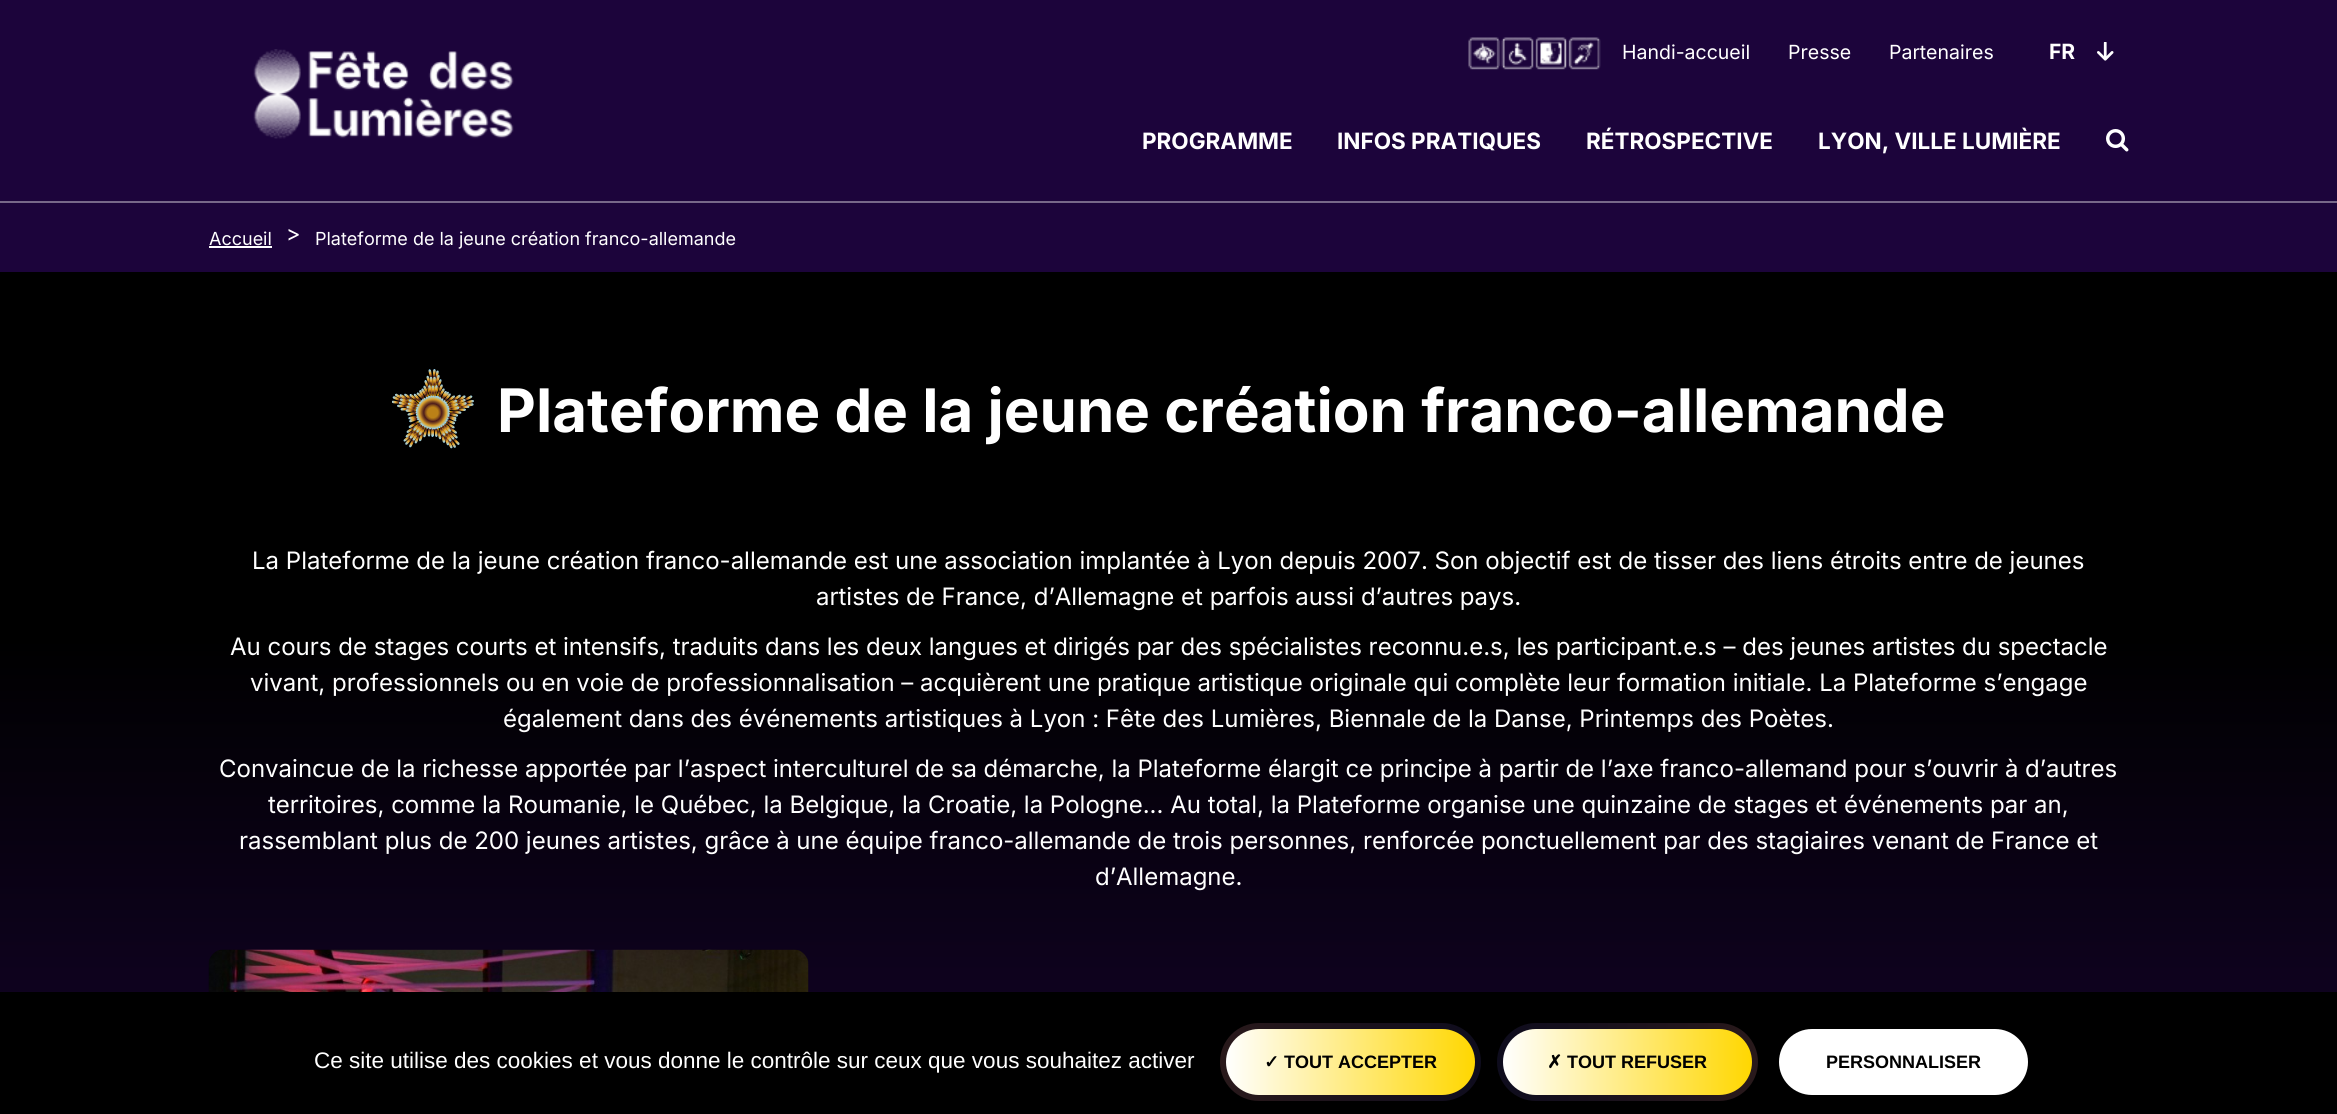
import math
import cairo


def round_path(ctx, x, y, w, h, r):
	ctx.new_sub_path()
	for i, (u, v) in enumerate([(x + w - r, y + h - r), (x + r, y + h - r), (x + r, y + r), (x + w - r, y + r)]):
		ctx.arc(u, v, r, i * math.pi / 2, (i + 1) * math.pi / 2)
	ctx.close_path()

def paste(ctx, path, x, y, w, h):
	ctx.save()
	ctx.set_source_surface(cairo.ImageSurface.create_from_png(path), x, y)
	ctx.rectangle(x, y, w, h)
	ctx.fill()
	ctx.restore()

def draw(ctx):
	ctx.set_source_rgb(0.11, 0.016, 0.231)
	ctx.paint()
	paste(ctx, 'media/1.png', 253, 49, 261, 90)
	paste(ctx, 'media/2.png', 1468, 37, 133, 33)
	ctx.select_font_face('Inter')
	ctx.set_font_size(19.5)
	ctx.set_source_rgb(1, 1, 1)
	for x, y, s in [
		(1622, 59, 'Handi-accueil'),
		(1788, 59, 'Presse'),
		(1889, 59, 'Partenaires'),
	]:
		ctx.move_to(x, y)
		ctx.show_text(s)
	ctx.select_font_face('Inter', cairo.FONT_SLANT_NORMAL, cairo.FONT_WEIGHT_BOLD)
	ctx.set_font_size(21)
	ctx.move_to(2049, 59)
	ctx.show_text('FR')
	paste(ctx, 'media/3.png', 2097, 42, 17, 19)
	ctx.set_font_size(22.5)
	for x, y, s in [
		(1142, 149, 'PROGRAMME'),
		(1337, 149, 'INFOS PRATIQUES'),
		(1586, 149, 'RÉTROSPECTIVE'),
		(1818, 149, 'LYON, VILLE LUMIÈRE'),
	]:
		ctx.move_to(x, y)
		ctx.show_text(s)
	paste(ctx, 'media/4.png', 2106, 129, 23, 23)
	ctx.set_source_rgb(0.467, 0.408, 0.537)
	ctx.rectangle(0, 201, 2337, 2)
	ctx.fill()
	ctx.select_font_face('Inter')
	ctx.set_font_size(18)
	ctx.set_source_rgb(1, 1, 1)
	ctx.move_to(209, 245)
	ctx.show_text('Accueil')
	ctx.rectangle(209, 246, 63, 2)
	ctx.fill()
	ctx.set_font_size(22)
	ctx.move_to(286, 241)
	ctx.show_text('>')
	ctx.set_font_size(18)
	ctx.move_to(315, 245)
	ctx.show_text('Plateforme de la jeune création franco-allemande')
	gradient = cairo.LinearGradient(1169, 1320, 1169, 203)
	gradient.add_color_stop_rgba(0, 0.11, 0.016, 0.231, 1)
	gradient.add_color_stop_rgba(0.61, 0, 0, 0, 1)
	ctx.set_source(gradient)
	ctx.rectangle(0, 272, 2337, 720)
	ctx.fill()
	paste(ctx, 'media/5.png', 392, 369, 82, 80)
	ctx.select_font_face('Inter', cairo.FONT_SLANT_NORMAL, cairo.FONT_WEIGHT_BOLD)
	ctx.set_font_size(60)
	ctx.set_source_rgb(1, 1, 1)
	ctx.move_to(497, 432)
	ctx.show_text('Plateforme de la jeune création franco-allemande')
	ctx.select_font_face('Inter')
	ctx.set_font_size(24)
	for x, y, s in [
		(252, 569, 'La Plateforme de la jeune création franco-allemande est une association implantée à Lyon depuis 2007. Son objectif est de tisser des liens étroits entre de jeunes'),
		(816, 605, 'artistes de France, d’Allemagne et parfois aussi d’autres pays.'),
		(230, 655, 'Au cours de stages courts et intensifs, traduits dans les deux langues et dirigés par des spécialistes reconnu.e.s, les participant.e.s – des jeunes artistes du spectacle'),
		(250, 691, 'vivant, professionnels ou en voie de professionnalisation – acquièrent une pratique artistique originale qui complète leur formation initiale. La Plateforme s’engage'),
		(503, 727, 'également dans des événements artistiques à Lyon : Fête des Lumières, Biennale de la Danse, Printemps des Poètes.'),
		(219, 777, 'Convaincue de la richesse apportée par l’aspect interculturel de sa démarche, la Plateforme élargit ce principe à partir de l’axe franco-allemand pour s’ouvrir à d’autres'),
		(268, 813, 'territoires, comme la Roumanie, le Québec, la Belgique, la Croatie, la Pologne... Au total, la Plateforme organise une quinzaine de stages et événements par an,'),
		(239, 849, 'rassemblant plus de 200 jeunes artistes, grâce à une équipe franco-allemande de trois personnes, renforcée ponctuellement par des stagiaires venant de France et'),
		(1095, 885, 'd’Allemagne.'),
	]:
		ctx.move_to(x, y)
		ctx.show_text(s)
	paste(ctx, 'media/6.png', 208, 949, 601, 43)
	ctx.set_source_rgb(0, 0, 0)
	ctx.rectangle(0, 992, 2337, 122)
	ctx.fill()
	ctx.select_font_face('Liberation Sans')
	ctx.set_font_size(22.5)
	ctx.set_source_rgb(1, 1, 1)
	ctx.move_to(314, 1068)
	ctx.show_text('Ce site utilise des cookies et vous donne le contrôle sur ceux que vous souhaitez activer')
	gradient = cairo.LinearGradient(1220, 1062, 1481, 1062)
	gradient.add_color_stop_rgba(0, 0.161, 0.098, 0.106, 1)
	gradient.add_color_stop_rgba(1, 0.055, 0.047, 0.114, 1)
	ctx.set_source(gradient)
	round_path(ctx, 1220, 1023, 261, 78, 39)
	ctx.fill()
	gradient = cairo.LinearGradient(1226, 1062, 1475, 1062)
	gradient.add_color_stop_rgba(0, 1, 1, 1, 1)
	gradient.add_color_stop_rgba(1, 1, 0.843, 0, 1)
	ctx.set_source(gradient)
	round_path(ctx, 1226, 1029, 249, 66, 33)
	ctx.fill()
	ctx.select_font_face('DejaVu Sans', cairo.FONT_SLANT_NORMAL, cairo.FONT_WEIGHT_BOLD)
	ctx.set_font_size(18)
	ctx.set_source_rgb(0, 0, 0)
	ctx.move_to(1264, 1068)
	ctx.show_text('✓')
	ctx.select_font_face('Liberation Sans', cairo.FONT_SLANT_NORMAL, cairo.FONT_WEIGHT_BOLD)
	ctx.move_to(1284, 1068)
	ctx.show_text('TOUT ACCEPTER')
	gradient = cairo.LinearGradient(1758, 1062, 1497, 1062)
	gradient.add_color_stop_rgba(0, 0.161, 0.098, 0.106, 1)
	gradient.add_color_stop_rgba(1, 0.055, 0.047, 0.114, 1)
	ctx.set_source(gradient)
	round_path(ctx, 1497, 1023, 261, 78, 39)
	ctx.fill()
	gradient = cairo.LinearGradient(1503, 1062, 1752, 1062)
	gradient.add_color_stop_rgba(0, 1, 1, 1, 1)
	gradient.add_color_stop_rgba(1, 1, 0.843, 0, 1)
	ctx.set_source(gradient)
	round_path(ctx, 1503, 1029, 249, 66, 33)
	ctx.fill()
	ctx.select_font_face('DejaVu Sans', cairo.FONT_SLANT_NORMAL, cairo.FONT_WEIGHT_BOLD)
	ctx.set_source_rgb(0, 0, 0)
	ctx.move_to(1547, 1068)
	ctx.show_text('✗')
	ctx.select_font_face('Liberation Sans', cairo.FONT_SLANT_NORMAL, cairo.FONT_WEIGHT_BOLD)
	ctx.move_to(1567, 1068)
	ctx.show_text('TOUT REFUSER')
	ctx.set_source_rgb(1, 1, 1)
	round_path(ctx, 1779, 1029, 249, 66, 33)
	ctx.fill()
	ctx.set_source_rgb(0, 0, 0)
	ctx.move_to(1826, 1068)
	ctx.show_text('PERSONNALISER')


surface = cairo.ImageSurface(cairo.FORMAT_RGB24, 2337, 1114)
ctx = cairo.Context(surface)
options = cairo.FontOptions()
options.set_hint_metrics(cairo.HINT_METRICS_OFF)
options.set_hint_style(cairo.HINT_STYLE_NONE)
ctx.set_font_options(options)
ctx.set_miter_limit(4)
draw(ctx)
surface.write_to_png('image.png')
